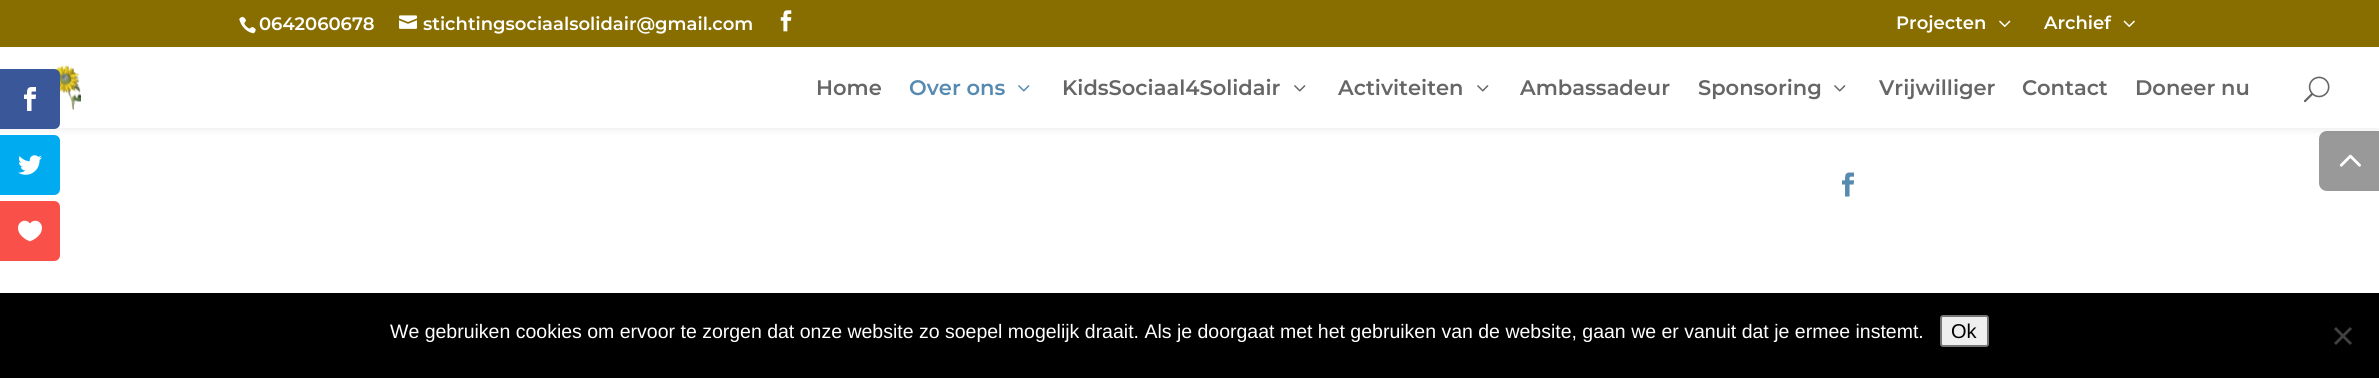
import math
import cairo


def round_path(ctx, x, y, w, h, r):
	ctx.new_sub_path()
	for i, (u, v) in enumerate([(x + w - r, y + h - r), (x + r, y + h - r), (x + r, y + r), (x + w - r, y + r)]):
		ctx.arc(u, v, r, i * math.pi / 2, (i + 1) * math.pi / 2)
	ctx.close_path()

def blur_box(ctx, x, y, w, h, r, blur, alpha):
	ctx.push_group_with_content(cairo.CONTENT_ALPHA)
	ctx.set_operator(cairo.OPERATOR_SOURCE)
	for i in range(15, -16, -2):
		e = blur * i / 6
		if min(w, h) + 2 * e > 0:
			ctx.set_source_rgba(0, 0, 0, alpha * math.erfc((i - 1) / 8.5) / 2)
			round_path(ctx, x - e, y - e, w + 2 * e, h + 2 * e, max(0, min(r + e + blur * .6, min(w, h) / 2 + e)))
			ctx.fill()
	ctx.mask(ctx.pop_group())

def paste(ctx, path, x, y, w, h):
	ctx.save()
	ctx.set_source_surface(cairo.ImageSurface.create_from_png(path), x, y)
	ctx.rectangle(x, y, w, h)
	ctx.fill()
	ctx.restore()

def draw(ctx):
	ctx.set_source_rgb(1, 1, 1)
	ctx.paint()
	ctx.set_source_rgb(0, 0, 0)
	blur_box(ctx, 0, 47, 2379, 81, 0, 5, 0.1)
	ctx.set_source_rgb(0.533, 0.431, 0)
	ctx.rectangle(0, 0, 2379, 47)
	ctx.fill()
	paste(ctx, 'media/1.png', 239, 16, 17, 18)
	ctx.select_font_face('Montserrat SemiBold')
	ctx.set_font_size(18)
	ctx.set_source_rgb(1, 1, 1)
	ctx.move_to(259, 30)
	ctx.show_text('0642060678')
	paste(ctx, 'media/2.png', 399, 15, 18, 14)
	ctx.move_to(423, 30)
	ctx.show_text('stichtingsociaalsolidair@gmail.com')
	paste(ctx, 'media/3.png', 780, 10, 12, 22)
	ctx.move_to(1896, 29)
	ctx.show_text('Projecten')
	paste(ctx, 'media/4.png', 1999, 20, 12, 7)
	ctx.move_to(2044, 29)
	ctx.show_text('Archief')
	paste(ctx, 'media/5.png', 2123, 20, 12, 7)
	ctx.rectangle(0, 47, 2379, 81)
	ctx.fill()
	paste(ctx, 'media/6.png', 55, 65, 26, 45)
	ctx.set_font_size(21)
	ctx.set_source_rgb(0.4, 0.4, 0.4)
	ctx.move_to(816, 95)
	ctx.show_text('Home')
	ctx.set_source_rgb(0.337, 0.541, 0.694)
	ctx.move_to(909, 95)
	ctx.show_text('Over ons')
	paste(ctx, 'media/7.png', 1018, 85, 12, 7)
	ctx.set_source_rgb(0.4, 0.4, 0.4)
	ctx.move_to(1062, 95)
	ctx.show_text('KidsSociaal4Solidair')
	paste(ctx, 'media/8.png', 1294, 85, 12, 7)
	ctx.move_to(1338, 95)
	ctx.show_text('Activiteiten')
	paste(ctx, 'media/8.png', 1477, 85, 12, 7)
	ctx.move_to(1520, 95)
	ctx.show_text('Ambassadeur')
	ctx.move_to(1698, 95)
	ctx.show_text('Sponsoring')
	paste(ctx, 'media/8.png', 1834, 85, 12, 7)
	for x, y, s in [
		(1879, 95, 'Vrijwilliger'),
		(2022, 95, 'Contact'),
		(2135, 95, 'Doneer nu'),
	]:
		ctx.move_to(x, y)
		ctx.show_text(s)
	paste(ctx, 'media/9.png', 2303, 76, 27, 27)
	paste(ctx, 'media/10.png', 1842, 172, 12, 25)
	ctx.set_source_rgba(0, 0, 0, 0.4)
	ctx.new_path()
	ctx.move_to(2327, 131)
	ctx.line_to(2379, 131)
	ctx.line_to(2379, 191)
	ctx.line_to(2327, 191)
	ctx.curve_to(2322.5, 191, 2319, 187.5, 2319, 183)
	ctx.line_to(2319, 139)
	ctx.curve_to(2319, 134.5, 2322.5, 131, 2327, 131)
	ctx.close_path()
	ctx.fill()
	paste(ctx, 'media/11.png', 2339, 154, 22, 13)
	ctx.set_source_rgb(0.227, 0.341, 0.604)
	ctx.new_path()
	ctx.move_to(0, 69)
	ctx.line_to(54, 69)
	ctx.curve_to(57.5, 69, 60, 71.5, 60, 75)
	ctx.line_to(60, 123)
	ctx.curve_to(60, 126.5, 57.5, 129, 54, 129)
	ctx.line_to(0, 129)
	ctx.close_path()
	ctx.fill()
	paste(ctx, 'media/12.png', 24, 87, 12, 24)
	ctx.set_source_rgb(0, 0.671, 0.941)
	ctx.new_path()
	ctx.move_to(0, 135)
	ctx.line_to(54, 135)
	ctx.curve_to(57.5, 135, 60, 137.5, 60, 141)
	ctx.line_to(60, 189)
	ctx.curve_to(60, 192.5, 57.5, 195, 54, 195)
	ctx.line_to(0, 195)
	ctx.close_path()
	ctx.fill()
	paste(ctx, 'media/13.png', 18, 155, 24, 20)
	ctx.set_source_rgb(0.976, 0.318, 0.286)
	ctx.new_path()
	ctx.move_to(0, 201)
	ctx.line_to(54, 201)
	ctx.curve_to(57.5, 201, 60, 203.5, 60, 207)
	ctx.line_to(60, 255)
	ctx.curve_to(60, 258.5, 57.5, 261, 54, 261)
	ctx.line_to(0, 261)
	ctx.close_path()
	ctx.fill()
	paste(ctx, 'media/14.png', 18, 220, 24, 22)
	ctx.set_source_rgb(0, 0, 0)
	ctx.rectangle(0, 293, 2379, 85)
	ctx.fill()
	ctx.select_font_face('Liberation Sans')
	ctx.set_font_size(19.5)
	ctx.set_source_rgb(1, 1, 1)
	ctx.move_to(390, 338)
	ctx.show_text('We gebruiken cookies om ervoor te zorgen dat onze website zo soepel mogelijk draait. Als je doorgaat met het gebruiken van de website, gaan we er vanuit dat je ermee instemt.')
	ctx.set_source_rgb(0.937, 0.937, 0.937)
	round_path(ctx, 1941, 316, 47, 30, 2)
	ctx.fill_preserve()
	ctx.set_source_rgb(0.463, 0.463, 0.463)
	ctx.stroke()
	ctx.set_font_size(20)
	ctx.set_source_rgb(0, 0, 0)
	ctx.move_to(1951, 338)
	ctx.show_text('Ok')
	ctx.set_source_rgb(0.251, 0.251, 0.251)
	ctx.new_path()
	ctx.move_to(2350, 327)
	ctx.line_to(2352, 329)
	ctx.line_to(2336, 345)
	ctx.line_to(2334, 343)
	ctx.close_path()
	ctx.fill()
	ctx.new_path()
	ctx.move_to(2334, 329)
	ctx.line_to(2336, 327)
	ctx.line_to(2352, 343)
	ctx.line_to(2350, 345)
	ctx.close_path()
	ctx.fill()


surface = cairo.ImageSurface(cairo.FORMAT_RGB24, 2379, 378)
ctx = cairo.Context(surface)
options = cairo.FontOptions()
options.set_hint_metrics(cairo.HINT_METRICS_OFF)
options.set_hint_style(cairo.HINT_STYLE_NONE)
ctx.set_font_options(options)
ctx.set_miter_limit(4)
draw(ctx)
surface.write_to_png('image.png')
